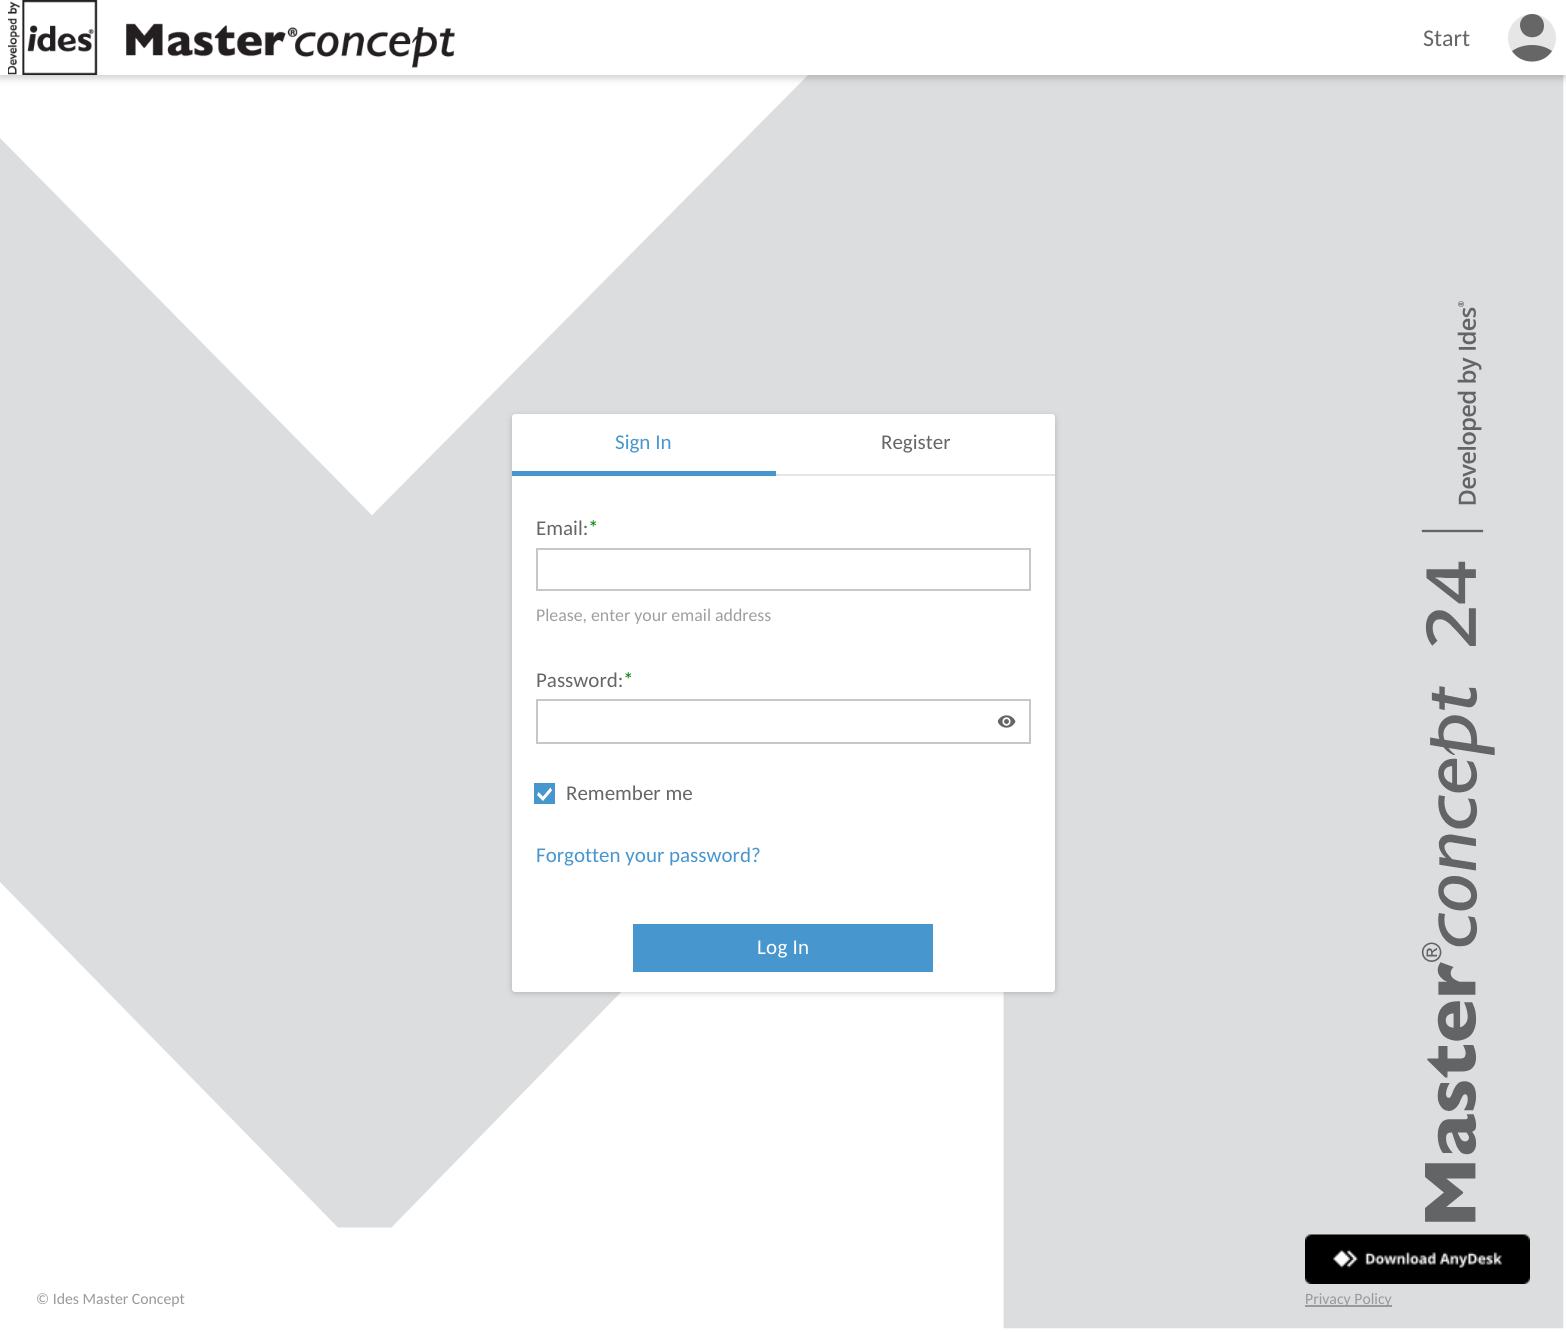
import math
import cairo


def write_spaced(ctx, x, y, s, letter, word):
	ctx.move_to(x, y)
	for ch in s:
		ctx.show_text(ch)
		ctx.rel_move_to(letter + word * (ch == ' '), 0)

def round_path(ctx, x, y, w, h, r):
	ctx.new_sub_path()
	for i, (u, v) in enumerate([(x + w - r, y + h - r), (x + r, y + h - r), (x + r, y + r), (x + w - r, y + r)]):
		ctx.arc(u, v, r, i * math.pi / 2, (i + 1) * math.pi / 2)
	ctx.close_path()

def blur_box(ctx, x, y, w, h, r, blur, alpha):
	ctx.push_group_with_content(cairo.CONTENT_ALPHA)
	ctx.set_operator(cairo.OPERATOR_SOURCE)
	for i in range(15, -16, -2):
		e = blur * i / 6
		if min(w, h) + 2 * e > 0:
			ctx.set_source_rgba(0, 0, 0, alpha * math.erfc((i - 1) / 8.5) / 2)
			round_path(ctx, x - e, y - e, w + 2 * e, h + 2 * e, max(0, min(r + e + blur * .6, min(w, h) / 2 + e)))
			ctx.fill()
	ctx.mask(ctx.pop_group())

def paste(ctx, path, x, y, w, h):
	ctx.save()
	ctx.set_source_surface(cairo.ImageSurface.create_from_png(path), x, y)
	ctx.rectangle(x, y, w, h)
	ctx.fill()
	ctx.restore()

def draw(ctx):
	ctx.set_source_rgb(1, 1, 1)
	ctx.paint()
	paste(ctx, 'media/1.png', 0, 75, 1566, 1257)
	ctx.set_source_rgb(0, 0, 0)
	blur_box(ctx, 0, 3, 1566, 75, 0, 4, 0.2)
	ctx.set_source_rgb(1, 1, 1)
	ctx.rectangle(0, 0, 1566, 75)
	ctx.fill()
	paste(ctx, 'media/2.png', 8, 0, 447, 75)
	ctx.select_font_face('Carlito')
	ctx.set_font_size(24)
	ctx.set_source_rgb(0.4, 0.4, 0.4)
	ctx.move_to(1423, 46)
	ctx.show_text('Start')
	ctx.set_source_rgb(0.902, 0.902, 0.902)
	ctx.new_path()
	ctx.arc(1532, 38, 24, 0, 2 * math.pi)
	ctx.fill()
	ctx.set_source_rgb(0.4, 0.4, 0.4)
	ctx.set_fill_rule(cairo.FILL_RULE_EVEN_ODD)
	ctx.new_path()
	ctx.move_to(1552, 51)
	ctx.curve_to(1543, 65, 1521, 65, 1512, 51)
	ctx.curve_to(1523, 43, 1541, 43, 1552, 51)
	ctx.close_path()
	ctx.move_to(1544, 26)
	ctx.curve_to(1544, 9, 1519, 11, 1520, 26)
	ctx.curve_to(1522, 42, 1544, 40, 1544, 26)
	ctx.close_path()
	ctx.fill()
	ctx.set_source_rgb(0, 0, 0)
	blur_box(ctx, 512, 416, 543, 577, 3, 3, 0.2)
	ctx.set_source_rgb(1, 1, 1)
	round_path(ctx, 512, 414, 543, 578, 3)
	ctx.fill()
	ctx.set_source_rgb(0.278, 0.588, 0.808)
	ctx.rectangle(512, 471, 264, 5)
	ctx.fill()
	ctx.set_font_size(21)
	ctx.move_to(615, 449)
	ctx.show_text('Sign In')
	ctx.set_source_rgb(0.902, 0.902, 0.902)
	ctx.rectangle(776, 474, 2, 2)
	ctx.fill()
	ctx.set_source_rgba(0, 0, 0, 0.1)
	ctx.rectangle(777, 474, 278, 2)
	ctx.fill()
	ctx.set_source_rgb(0.4, 0.4, 0.4)
	ctx.move_to(881, 449)
	ctx.show_text('Register')
	ctx.move_to(536, 535)
	ctx.show_text('Email:')
	ctx.set_source_rgb(0, 0.502, 0)
	ctx.move_to(588, 535)
	ctx.show_text('*')
	ctx.rectangle(537, 549, 493, 41)
	ctx.set_source_rgb(0.78, 0.78, 0.78)
	ctx.stroke()
	ctx.set_font_size(17.8)
	ctx.set_source_rgb(0.624, 0.624, 0.624)
	ctx.move_to(536, 621)
	ctx.show_text('Please, enter your email address')
	ctx.set_font_size(21)
	ctx.set_source_rgb(0.4, 0.4, 0.4)
	ctx.move_to(536, 687)
	ctx.show_text('Password:')
	ctx.set_source_rgb(0, 0.502, 0)
	ctx.move_to(623, 687)
	ctx.show_text('*')
	ctx.rectangle(537, 700, 493, 43)
	ctx.set_source_rgb(0.78, 0.78, 0.78)
	ctx.stroke()
	paste(ctx, 'media/3.png', 998, 715, 18, 13)
	paste(ctx, 'media/4.png', 534, 783, 21, 21)
	ctx.set_source_rgb(0.4, 0.4, 0.4)
	ctx.move_to(566, 800)
	ctx.show_text('Remember me')
	ctx.set_source_rgb(0.278, 0.588, 0.808)
	ctx.move_to(536, 862)
	ctx.show_text('Forgotten your password?')
	ctx.rectangle(633, 924, 300, 48)
	ctx.fill()
	ctx.set_source_rgb(1, 1, 1)
	write_spaced(ctx, 757, 954, 'Log In', 0.25, 0)
	ctx.set_font_size(15.75)
	ctx.set_source_rgb(0.6, 0.6, 0.6)
	ctx.move_to(36, 1304)
	ctx.show_text('© Ides Master Concept')
	paste(ctx, 'media/5.png', 1305, 1234, 225, 50)
	ctx.rectangle(1305, 1305, 87, 2)
	ctx.fill()
	ctx.move_to(1305, 1304)
	ctx.show_text('Privacy Policy')


surface = cairo.ImageSurface(cairo.FORMAT_RGB24, 1566, 1332)
ctx = cairo.Context(surface)
options = cairo.FontOptions()
options.set_hint_metrics(cairo.HINT_METRICS_OFF)
options.set_hint_style(cairo.HINT_STYLE_NONE)
ctx.set_font_options(options)
ctx.set_miter_limit(4)
draw(ctx)
surface.write_to_png('image.png')
